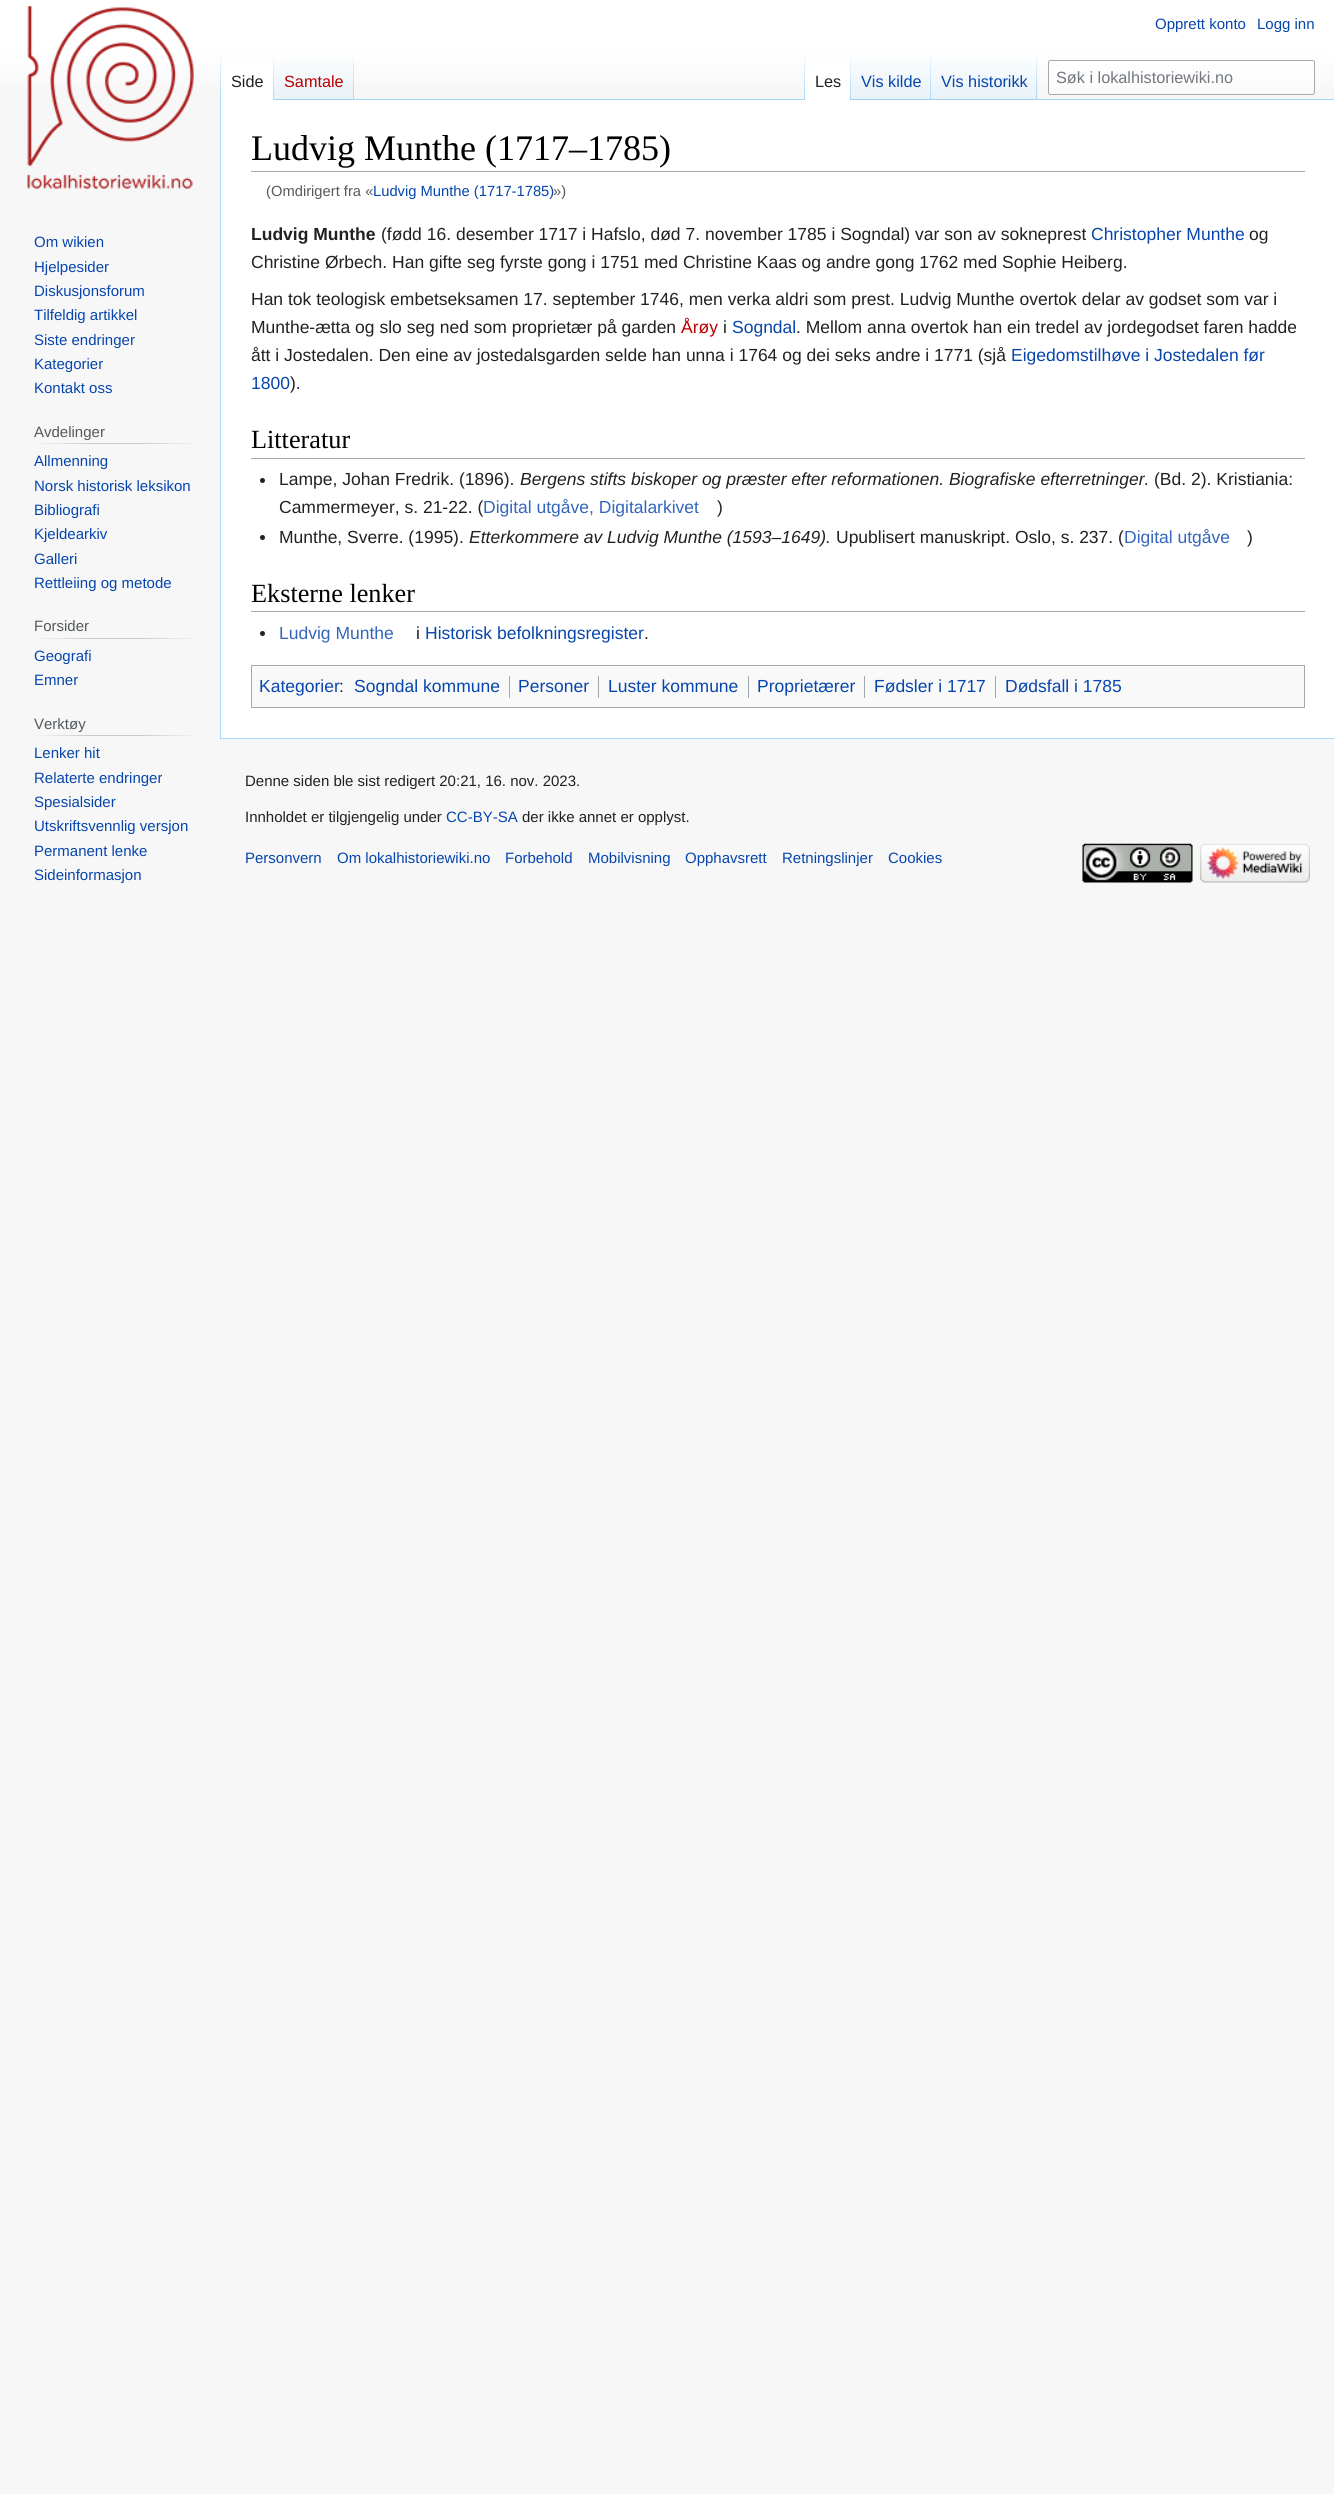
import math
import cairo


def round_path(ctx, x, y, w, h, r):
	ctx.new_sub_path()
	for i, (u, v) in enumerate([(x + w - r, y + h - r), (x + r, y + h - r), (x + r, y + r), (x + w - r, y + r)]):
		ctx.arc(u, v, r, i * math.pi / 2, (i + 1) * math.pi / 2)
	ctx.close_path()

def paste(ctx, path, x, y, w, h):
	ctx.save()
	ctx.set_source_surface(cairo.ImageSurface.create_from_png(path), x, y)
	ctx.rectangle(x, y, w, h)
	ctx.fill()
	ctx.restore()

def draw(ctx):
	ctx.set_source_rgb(0.965, 0.965, 0.965)
	ctx.paint()
	gradient = cairo.LinearGradient(668, 0, 668, 100)
	gradient.add_color_stop_rgba(0.5, 1, 1, 1, 1)
	gradient.add_color_stop_rgba(1, 0.965, 0.965, 0.965, 1)
	ctx.set_source(gradient)
	ctx.rectangle(0, 0, 1334, 86)
	ctx.fill()
	ctx.select_font_face('Liberation Sans')
	ctx.set_font_size(15)
	ctx.set_source_rgb(0.024, 0.271, 0.678)
	ctx.move_to(1155, 29)
	ctx.show_text('Opprett konto')
	ctx.move_to(1257, 29)
	ctx.show_text('Logg inn')
	ctx.set_source_rgb(0.655, 0.843, 0.976)
	ctx.rectangle(220, 738, 1114, 1)
	ctx.fill()
	ctx.rectangle(220, 99, 1, 640)
	ctx.fill()
	gradient = cairo.LinearGradient(221, 50, 221, 100)
	gradient.add_color_stop_rgba(0, 0.655, 0.843, 0.976, 0)
	gradient.add_color_stop_rgba(1, 0.655, 0.843, 0.976, 1)
	ctx.set_source(gradient)
	ctx.rectangle(220, 50, 1, 50)
	ctx.fill()
	ctx.set_source_rgb(1, 1, 1)
	ctx.rectangle(221, 64, 52, 36)
	ctx.fill()
	gradient = cairo.LinearGradient(273, 50, 273, 100)
	gradient.add_color_stop_rgba(0, 1, 1, 1, 1)
	gradient.add_color_stop_rgba(1, 0.655, 0.843, 0.976, 1)
	ctx.set_source(gradient)
	ctx.rectangle(273, 50, 1, 50)
	ctx.fill()
	ctx.set_font_size(16.25)
	ctx.set_source_rgb(0.125, 0.129, 0.133)
	ctx.move_to(231, 87)
	ctx.show_text('Side')
	gradient = cairo.LinearGradient(314, 100, 314, 50)
	gradient.add_color_stop_rgba(0, 0.467, 0.757, 0.965, 1)
	gradient.add_color_stop_rgba(0.03, 0.91, 0.949, 0.973, 1)
	gradient.add_color_stop_rgba(1, 1, 1, 1, 1)
	ctx.set_source(gradient)
	ctx.rectangle(274, 57, 80, 43)
	ctx.fill()
	gradient = cairo.LinearGradient(353, 50, 353, 100)
	gradient.add_color_stop_rgba(0, 0.655, 0.843, 0.976, 0)
	gradient.add_color_stop_rgba(1, 0.655, 0.843, 0.976, 1)
	ctx.set_source(gradient)
	ctx.rectangle(353, 50, 1, 50)
	ctx.fill()
	ctx.set_source_rgb(0.729, 0, 0)
	ctx.move_to(284, 87)
	ctx.show_text('Samtale')
	ctx.set_source_rgb(0.655, 0.843, 0.976)
	ctx.rectangle(354, 99, 980, 1)
	ctx.fill()
	gradient = cairo.LinearGradient(804, 50, 804, 100)
	gradient.add_color_stop_rgba(0, 0.655, 0.843, 0.976, 0)
	gradient.add_color_stop_rgba(1, 0.655, 0.843, 0.976, 1)
	ctx.set_source(gradient)
	ctx.rectangle(804, 50, 1, 50)
	ctx.fill()
	ctx.set_source_rgb(1, 1, 1)
	ctx.rectangle(805, 64, 45, 36)
	ctx.fill()
	gradient = cairo.LinearGradient(851, 50, 851, 100)
	gradient.add_color_stop_rgba(0, 1, 1, 1, 1)
	gradient.add_color_stop_rgba(1, 0.655, 0.843, 0.976, 1)
	ctx.set_source(gradient)
	ctx.rectangle(850, 50, 1, 50)
	ctx.fill()
	ctx.set_source_rgb(0.125, 0.129, 0.133)
	ctx.move_to(815, 87)
	ctx.show_text('Les')
	gradient = cairo.LinearGradient(891, 100, 891, 50)
	gradient.add_color_stop_rgba(0, 0.467, 0.757, 0.965, 1)
	gradient.add_color_stop_rgba(0.03, 0.91, 0.949, 0.973, 1)
	gradient.add_color_stop_rgba(1, 1, 1, 1, 1)
	ctx.set_source(gradient)
	ctx.rectangle(851, 57, 80, 43)
	ctx.fill()
	gradient = cairo.LinearGradient(931, 50, 931, 100)
	gradient.add_color_stop_rgba(0, 0.655, 0.843, 0.976, 0)
	gradient.add_color_stop_rgba(1, 0.655, 0.843, 0.976, 1)
	ctx.set_source(gradient)
	ctx.rectangle(930, 50, 1, 50)
	ctx.fill()
	ctx.set_source_rgb(0.024, 0.271, 0.678)
	ctx.move_to(861, 87)
	ctx.show_text('Vis kilde')
	gradient = cairo.LinearGradient(984, 100, 984, 50)
	gradient.add_color_stop_rgba(0, 0.467, 0.757, 0.965, 1)
	gradient.add_color_stop_rgba(0.03, 0.91, 0.949, 0.973, 1)
	gradient.add_color_stop_rgba(1, 1, 1, 1, 1)
	ctx.set_source(gradient)
	ctx.rectangle(931, 57, 107, 43)
	ctx.fill()
	gradient = cairo.LinearGradient(1037, 50, 1037, 100)
	gradient.add_color_stop_rgba(0, 0.655, 0.843, 0.976, 0)
	gradient.add_color_stop_rgba(1, 0.655, 0.843, 0.976, 1)
	ctx.set_source(gradient)
	ctx.rectangle(1036, 50, 1, 50)
	ctx.fill()
	ctx.set_source_rgb(0.024, 0.271, 0.678)
	ctx.move_to(941, 87)
	ctx.show_text('Vis historikk')
	ctx.set_source_rgba(1, 1, 1, 0.5)
	round_path(ctx, 1048.5, 60.5, 266, 34, 2)
	ctx.fill_preserve()
	ctx.set_source_rgb(0.635, 0.663, 0.694)
	ctx.set_line_width(1)
	ctx.stroke()
	ctx.set_source_rgb(0.447, 0.467, 0.49)
	ctx.move_to(1056, 83)
	ctx.show_text('Søk i lokalhistoriewiki.no')
	paste(ctx, 'media/1.png', 27, 6, 167, 183)
	ctx.set_font_size(15)
	ctx.set_source_rgb(0.024, 0.271, 0.678)
	for x, y, s in [
		(34, 247, 'Om wikien'),
		(34, 272, 'Hjelpesider'),
		(34, 296, 'Diskusjonsforum'),
		(34, 320, 'Tilfeldig artikkel'),
		(34, 345, 'Siste endringer'),
		(34, 369, 'Kategorier'),
		(34, 393, 'Kontakt oss'),
	]:
		ctx.move_to(x, y)
		ctx.show_text(s)
	gradient = cairo.LinearGradient(34, 443, 198, 443)
	gradient.add_color_stop_rgba(0, 0.965, 0.965, 0.965, 1)
	gradient.add_color_stop_rgba(0.33, 0.784, 0.8, 0.82, 1)
	gradient.add_color_stop_rgba(0.66, 0.784, 0.8, 0.82, 1)
	gradient.add_color_stop_rgba(1, 0.965, 0.965, 0.965, 1)
	ctx.set_source(gradient)
	ctx.rectangle(34, 443, 164, 1)
	ctx.fill()
	ctx.set_source_rgb(0.329, 0.349, 0.365)
	ctx.move_to(34, 437)
	ctx.show_text('Avdelinger')
	ctx.set_source_rgb(0.024, 0.271, 0.678)
	for x, y, s in [
		(34, 466, 'Allmenning'),
		(34, 491, 'Norsk historisk leksikon'),
		(34, 515, 'Bibliografi'),
		(34, 539, 'Kjeldearkiv'),
		(34, 564, 'Galleri'),
		(34, 588, 'Rettleiing og metode'),
	]:
		ctx.move_to(x, y)
		ctx.show_text(s)
	gradient = cairo.LinearGradient(34, 638, 198, 638)
	gradient.add_color_stop_rgba(0, 0.965, 0.965, 0.965, 1)
	gradient.add_color_stop_rgba(0.33, 0.784, 0.8, 0.82, 1)
	gradient.add_color_stop_rgba(0.66, 0.784, 0.8, 0.82, 1)
	gradient.add_color_stop_rgba(1, 0.965, 0.965, 0.965, 1)
	ctx.set_source(gradient)
	ctx.rectangle(34, 638, 164, 1)
	ctx.fill()
	ctx.set_source_rgb(0.329, 0.349, 0.365)
	ctx.move_to(34, 631)
	ctx.show_text('Forsider')
	ctx.set_source_rgb(0.024, 0.271, 0.678)
	ctx.move_to(34, 661)
	ctx.show_text('Geografi')
	ctx.move_to(34, 685)
	ctx.show_text('Emner')
	gradient = cairo.LinearGradient(34, 736, 198, 736)
	gradient.add_color_stop_rgba(0, 0.965, 0.965, 0.965, 1)
	gradient.add_color_stop_rgba(0.33, 0.784, 0.8, 0.82, 1)
	gradient.add_color_stop_rgba(0.66, 0.784, 0.8, 0.82, 1)
	gradient.add_color_stop_rgba(1, 0.965, 0.965, 0.965, 1)
	ctx.set_source(gradient)
	ctx.rectangle(34, 735, 164, 1)
	ctx.fill()
	ctx.set_source_rgb(0.329, 0.349, 0.365)
	ctx.move_to(34, 729)
	ctx.show_text('Verktøy')
	ctx.set_source_rgb(0.024, 0.271, 0.678)
	for x, y, s in [
		(34, 758, 'Lenker hit'),
		(34, 783, 'Relaterte endringer'),
		(34, 807, 'Spesialsider'),
		(34, 831, 'Utskriftsvennlig versjon'),
		(34, 856, 'Permanent lenke'),
		(34, 880, 'Sideinformasjon'),
	]:
		ctx.move_to(x, y)
		ctx.show_text(s)
	ctx.set_source_rgb(1, 1, 1)
	ctx.rectangle(221, 100, 1113, 638)
	ctx.fill()
	ctx.set_source_rgb(0.635, 0.663, 0.694)
	ctx.rectangle(251, 171, 1054, 1)
	ctx.fill()
	ctx.select_font_face('Liberation Serif')
	ctx.set_font_size(36)
	ctx.set_source_rgb(0, 0, 0)
	ctx.move_to(251, 160)
	ctx.show_text('Ludvig Munthe (1717–1785)')
	ctx.select_font_face('Liberation Sans')
	ctx.set_font_size(14.75)
	ctx.set_source_rgb(0.329, 0.349, 0.365)
	ctx.move_to(266, 196)
	ctx.show_text('(Omdirigert fra «')
	ctx.set_source_rgb(0.024, 0.271, 0.678)
	ctx.move_to(373, 196)
	ctx.show_text('Ludvig Munthe (1717-1785)')
	ctx.set_source_rgb(0.329, 0.349, 0.365)
	ctx.move_to(553, 196)
	ctx.show_text('»)')
	ctx.select_font_face('Liberation Sans', cairo.FONT_SLANT_NORMAL, cairo.FONT_WEIGHT_BOLD)
	ctx.set_font_size(17.5)
	ctx.set_source_rgb(0.125, 0.129, 0.133)
	ctx.move_to(251, 240)
	ctx.show_text('Ludvig Munthe')
	ctx.select_font_face('Liberation Sans')
	ctx.move_to(381, 240)
	ctx.show_text('(fødd 16. desember 1717 i Hafslo, død 7. november 1785 i Sogndal) var son av sokneprest')
	ctx.set_source_rgb(0.024, 0.271, 0.678)
	ctx.move_to(1091, 240)
	ctx.show_text('Christopher Munthe')
	ctx.set_source_rgb(0.125, 0.129, 0.133)
	for x, y, s in [
		(1249, 240, 'og'),
		(251, 268, 'Christine Ørbech. Han gifte seg fyrste gong i 1751 med Christine Kaas og andre gong 1762 med Sophie Heiberg.'),
		(251, 305, 'Han tok teologisk embetseksamen 17. september 1746, men verka aldri som prest. Ludvig Munthe overtok delar av godset som var i'),
		(251, 333, 'Munthe-ætta og slo seg ned som proprietær på garden'),
	]:
		ctx.move_to(x, y)
		ctx.show_text(s)
	ctx.set_source_rgb(0.729, 0, 0)
	ctx.move_to(681, 333)
	ctx.show_text('Årøy')
	ctx.set_source_rgb(0.125, 0.129, 0.133)
	ctx.move_to(723, 333)
	ctx.show_text('i')
	ctx.set_source_rgb(0.024, 0.271, 0.678)
	ctx.move_to(732, 333)
	ctx.show_text('Sogndal')
	ctx.set_source_rgb(0.125, 0.129, 0.133)
	ctx.move_to(796, 333)
	ctx.show_text('. Mellom anna overtok han ein tredel av jordegodset faren hadde')
	ctx.move_to(251, 361)
	ctx.show_text('ått i Jostedalen. Den eine av jostedalsgarden selde han unna i 1764 og dei seks andre i 1771 (sjå')
	ctx.set_source_rgb(0.024, 0.271, 0.678)
	ctx.move_to(1011, 361)
	ctx.show_text('Eigedomstilhøve i Jostedalen før')
	ctx.move_to(251, 389)
	ctx.show_text('1800')
	ctx.set_source_rgb(0.125, 0.129, 0.133)
	ctx.move_to(290, 389)
	ctx.show_text(').')
	ctx.set_source_rgb(0.635, 0.663, 0.694)
	ctx.rectangle(251, 458, 1054, 1)
	ctx.fill()
	ctx.select_font_face('Liberation Serif')
	ctx.set_font_size(26.25)
	ctx.set_source_rgb(0, 0, 0)
	ctx.move_to(251, 448)
	ctx.show_text('Litteratur')
	ctx.set_source_rgb(0.125, 0.129, 0.133)
	ctx.new_path()
	ctx.arc(262.5, 480.5, 2.5, 0, 2 * math.pi)
	ctx.fill()
	ctx.select_font_face('Liberation Sans')
	ctx.set_font_size(17.5)
	ctx.move_to(279, 485)
	ctx.show_text('Lampe, Johan Fredrik. (1896).')
	ctx.select_font_face('Liberation Sans', cairo.FONT_SLANT_ITALIC)
	ctx.move_to(520, 485)
	ctx.show_text('Bergens stifts biskoper og præster efter reformationen. Biografiske efterretninger.')
	ctx.select_font_face('Liberation Sans')
	ctx.move_to(1154, 485)
	ctx.show_text('(Bd. 2). Kristiania:')
	ctx.move_to(279, 513)
	ctx.show_text('Cammermeyer, s. 21-22. (')
	ctx.set_source_rgb(0.2, 0.4, 0.733)
	ctx.move_to(483, 513)
	ctx.show_text('Digital utgåve, Digitalarkivet')
	ctx.set_source_rgb(0.125, 0.129, 0.133)
	ctx.move_to(717, 513)
	ctx.show_text(')')
	ctx.new_path()
	ctx.arc(262.5, 537.5, 2.5, 0, 2 * math.pi)
	ctx.fill()
	ctx.move_to(279, 543)
	ctx.show_text('Munthe, Sverre. (1995).')
	ctx.select_font_face('Liberation Sans', cairo.FONT_SLANT_ITALIC)
	ctx.move_to(469, 543)
	ctx.show_text('Etterkommere av Ludvig Munthe (1593–1649).')
	ctx.select_font_face('Liberation Sans')
	ctx.move_to(836, 543)
	ctx.show_text('Upublisert manuskript. Oslo, s. 237. (')
	ctx.set_source_rgb(0.2, 0.4, 0.733)
	ctx.move_to(1124, 543)
	ctx.show_text('Digital utgåve')
	ctx.set_source_rgb(0.125, 0.129, 0.133)
	ctx.move_to(1247, 543)
	ctx.show_text(')')
	ctx.set_source_rgb(0.635, 0.663, 0.694)
	ctx.rectangle(251, 611, 1054, 1)
	ctx.fill()
	ctx.select_font_face('Liberation Serif')
	ctx.set_font_size(26.25)
	ctx.set_source_rgb(0, 0, 0)
	ctx.move_to(251, 602)
	ctx.show_text('Eksterne lenker')
	ctx.set_source_rgb(0.125, 0.129, 0.133)
	ctx.new_path()
	ctx.arc(262.5, 633.5, 2.5, 0, 2 * math.pi)
	ctx.fill()
	ctx.select_font_face('Liberation Sans')
	ctx.set_font_size(17.5)
	ctx.set_source_rgb(0.2, 0.4, 0.733)
	ctx.move_to(279, 639)
	ctx.show_text('Ludvig Munthe')
	ctx.set_source_rgb(0.125, 0.129, 0.133)
	ctx.move_to(416, 639)
	ctx.show_text('i')
	ctx.set_source_rgb(0.024, 0.271, 0.678)
	ctx.move_to(425, 639)
	ctx.show_text('Historisk befolkningsregister')
	ctx.set_source_rgb(0.125, 0.129, 0.133)
	ctx.move_to(644, 639)
	ctx.show_text('.')
	ctx.set_source_rgb(0.973, 0.976, 0.98)
	ctx.rectangle(251.5, 665.5, 1053, 42)
	ctx.fill_preserve()
	ctx.set_source_rgb(0.635, 0.663, 0.694)
	ctx.stroke()
	ctx.set_source_rgb(0.024, 0.271, 0.678)
	ctx.move_to(259, 692)
	ctx.show_text('Kategorier')
	ctx.set_source_rgb(0.125, 0.129, 0.133)
	ctx.move_to(339, 692)
	ctx.show_text(':')
	ctx.set_source_rgb(0.024, 0.271, 0.678)
	ctx.move_to(354, 692)
	ctx.show_text('Sogndal kommune')
	ctx.set_source_rgb(0.635, 0.663, 0.694)
	ctx.rectangle(509, 676, 1, 22)
	ctx.fill()
	ctx.set_source_rgb(0.024, 0.271, 0.678)
	ctx.move_to(518, 692)
	ctx.show_text('Personer')
	ctx.set_source_rgb(0.635, 0.663, 0.694)
	ctx.rectangle(598, 676, 1, 22)
	ctx.fill()
	ctx.set_source_rgb(0.024, 0.271, 0.678)
	ctx.move_to(608, 692)
	ctx.show_text('Luster kommune')
	ctx.set_source_rgb(0.635, 0.663, 0.694)
	ctx.rectangle(748, 676, 1, 22)
	ctx.fill()
	ctx.set_source_rgb(0.024, 0.271, 0.678)
	ctx.move_to(757, 692)
	ctx.show_text('Proprietærer')
	ctx.set_source_rgb(0.635, 0.663, 0.694)
	ctx.rectangle(864, 676, 1, 22)
	ctx.fill()
	ctx.set_source_rgb(0.024, 0.271, 0.678)
	ctx.move_to(874, 692)
	ctx.show_text('Fødsler i 1717')
	ctx.set_source_rgb(0.635, 0.663, 0.694)
	ctx.rectangle(995, 676, 1, 22)
	ctx.fill()
	ctx.set_source_rgb(0.024, 0.271, 0.678)
	ctx.move_to(1005, 692)
	ctx.show_text('Dødsfall i 1785')
	ctx.set_font_size(15)
	ctx.set_source_rgb(0.125, 0.129, 0.133)
	ctx.move_to(245, 786)
	ctx.show_text('Denne siden ble sist redigert 20:21, 16. nov. 2023.')
	ctx.move_to(245, 822)
	ctx.show_text('Innholdet er tilgjengelig under')
	ctx.set_source_rgb(0.024, 0.271, 0.678)
	ctx.move_to(446, 822)
	ctx.show_text('CC-BY-SA')
	ctx.set_source_rgb(0.125, 0.129, 0.133)
	ctx.move_to(522, 822)
	ctx.show_text('der ikke annet er opplyst.')
	ctx.set_source_rgb(0.024, 0.271, 0.678)
	for x, y, s in [
		(245, 863, 'Personvern'),
		(337, 863, 'Om lokalhistoriewiki.no'),
		(505, 863, 'Forbehold'),
		(588, 863, 'Mobilvisning'),
		(685, 863, 'Opphavsrett'),
		(782, 863, 'Retningslinjer'),
		(888, 863, 'Cookies'),
	]:
		ctx.move_to(x, y)
		ctx.show_text(s)
	paste(ctx, 'media/2.png', 1082, 843, 111, 40)
	paste(ctx, 'media/3.png', 1200, 843, 110, 40)


surface = cairo.ImageSurface(cairo.FORMAT_RGB24, 1334, 2494)
ctx = cairo.Context(surface)
options = cairo.FontOptions()
options.set_hint_metrics(cairo.HINT_METRICS_OFF)
options.set_hint_style(cairo.HINT_STYLE_NONE)
ctx.set_font_options(options)
ctx.set_miter_limit(4)
draw(ctx)
surface.write_to_png('image.png')
